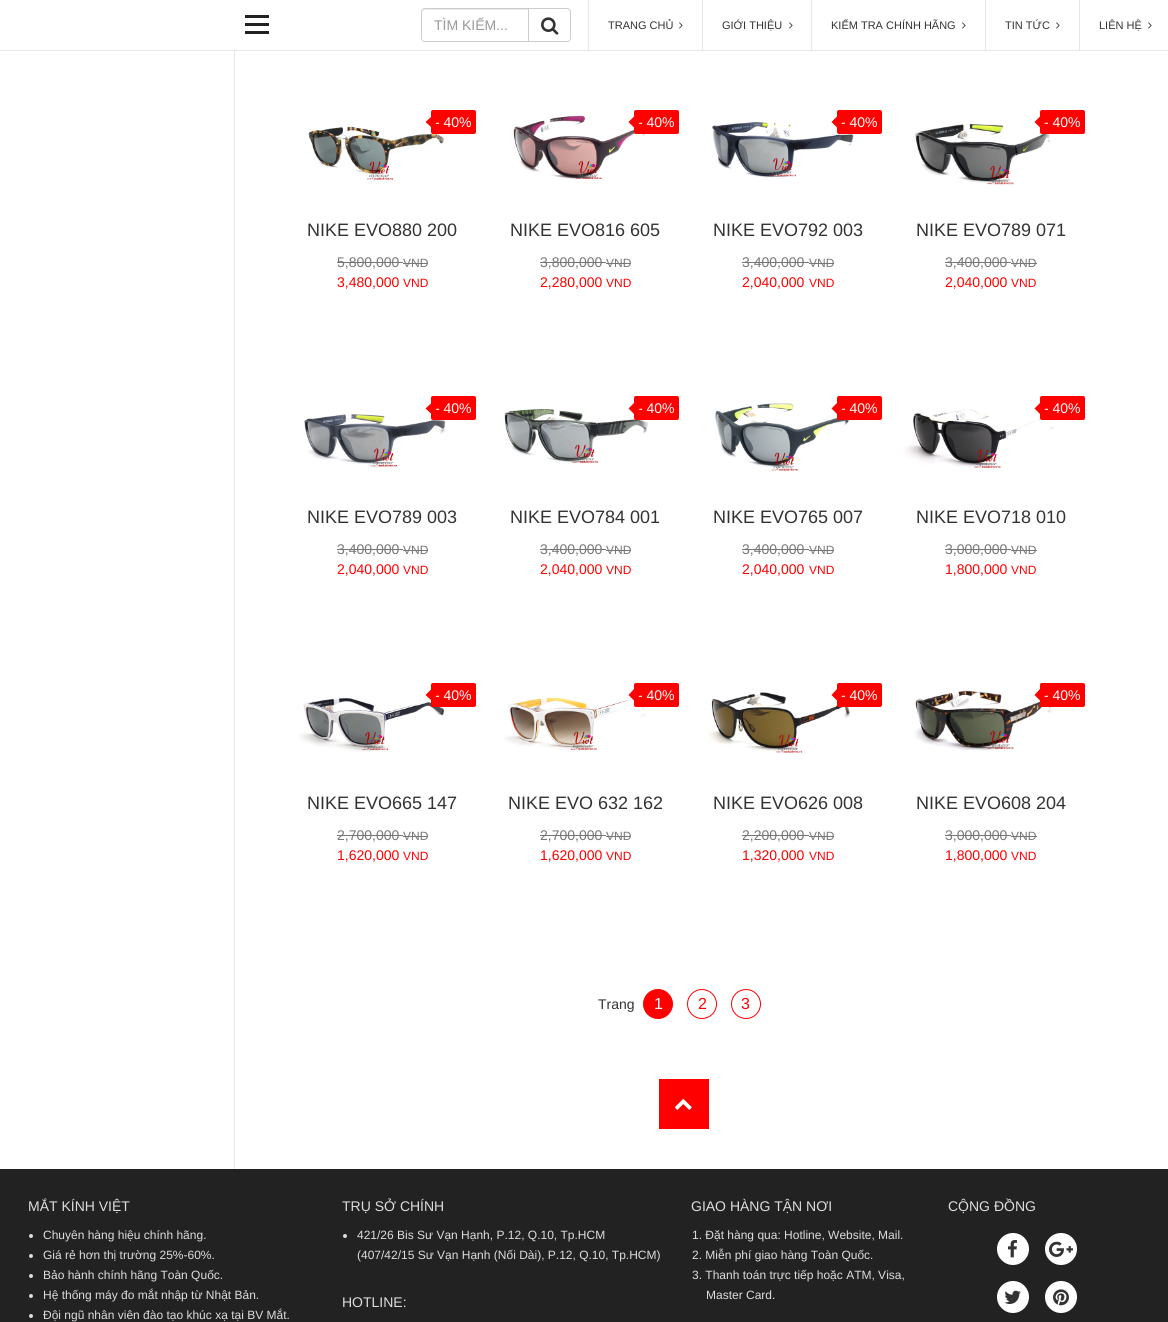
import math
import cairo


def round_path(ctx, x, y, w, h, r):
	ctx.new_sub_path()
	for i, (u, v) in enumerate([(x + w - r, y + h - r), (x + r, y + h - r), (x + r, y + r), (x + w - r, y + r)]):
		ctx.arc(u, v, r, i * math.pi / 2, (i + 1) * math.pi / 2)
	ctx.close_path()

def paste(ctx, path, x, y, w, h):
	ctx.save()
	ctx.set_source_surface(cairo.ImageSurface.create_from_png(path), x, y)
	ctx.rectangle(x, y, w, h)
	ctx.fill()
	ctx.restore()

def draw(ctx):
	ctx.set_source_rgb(1, 1, 1)
	ctx.paint()
	ctx.set_source_rgb(0.129, 0.129, 0.129)
	ctx.rectangle(245, 23, 24, 3)
	ctx.rectangle(245, 15, 24, 3)
	ctx.rectangle(245, 31, 24, 3)
	ctx.fill()
	ctx.set_source_rgb(0.906, 0.906, 0.906)
	ctx.rectangle(0, 50, 1168, 1)
	ctx.fill()
	ctx.set_source_rgb(0.925, 0.925, 0.925)
	ctx.new_path()
	ctx.move_to(425, 10)
	ctx.line_to(528, 10)
	ctx.line_to(528, 9)
	ctx.line_to(425, 9)
	ctx.curve_to(423, 9, 422, 10, 422, 12)
	ctx.line_to(422, 13)
	ctx.curve_to(422, 11, 423, 10, 425, 10)
	ctx.close_path()
	ctx.fill()
	ctx.new_path()
	ctx.move_to(425, 8.5)
	ctx.line_to(528.5, 8.5)
	ctx.line_to(528.5, 41.5)
	ctx.line_to(425, 41.5)
	ctx.curve_to(423, 41.5, 421.5, 40, 421.5, 38)
	ctx.line_to(421.5, 12)
	ctx.curve_to(421.5, 10, 423, 8.5, 425, 8.5)
	ctx.close_path()
	ctx.set_source_rgb(0.8, 0.8, 0.8)
	ctx.set_line_width(1)
	ctx.stroke()
	ctx.select_font_face('Liberation Sans')
	ctx.set_font_size(14)
	ctx.set_source_rgb(0.6, 0.6, 0.6)
	ctx.move_to(434, 30)
	ctx.show_text('TÌM KIẾM...')
	ctx.set_source_rgb(1, 1, 1)
	ctx.new_path()
	ctx.move_to(528.5, 8.5)
	ctx.line_to(567, 8.5)
	ctx.curve_to(569, 8.5, 570.5, 10, 570.5, 12)
	ctx.line_to(570.5, 38)
	ctx.curve_to(570.5, 40, 569, 41.5, 567, 41.5)
	ctx.line_to(528.5, 41.5)
	ctx.close_path()
	ctx.fill_preserve()
	ctx.set_source_rgb(0.8, 0.8, 0.8)
	ctx.stroke()
	paste(ctx, 'media/1.png', 541, 17, 18, 18)
	ctx.set_source_rgb(0.906, 0.906, 0.906)
	ctx.rectangle(588, 0, 1, 50)
	ctx.fill()
	ctx.set_font_size(11)
	ctx.set_source_rgb(0.2, 0.2, 0.2)
	ctx.move_to(608, 29)
	ctx.show_text('TRANG CHỦ')
	paste(ctx, 'media/2.png', 679, 22, 4, 7)
	ctx.set_source_rgb(0.906, 0.906, 0.906)
	ctx.rectangle(702, 0, 1, 50)
	ctx.fill()
	ctx.set_source_rgb(0.2, 0.2, 0.2)
	ctx.move_to(722, 29)
	ctx.show_text('GIỚI THIỆU')
	paste(ctx, 'media/2.png', 789, 22, 4, 7)
	ctx.set_source_rgb(0.906, 0.906, 0.906)
	ctx.rectangle(811, 0, 1, 50)
	ctx.fill()
	ctx.set_source_rgb(0.2, 0.2, 0.2)
	ctx.move_to(831, 29)
	ctx.show_text('KIỂM TRA CHÍNH HÃNG')
	paste(ctx, 'media/2.png', 962, 22, 4, 7)
	ctx.set_source_rgb(0.906, 0.906, 0.906)
	ctx.rectangle(985, 0, 1, 50)
	ctx.fill()
	ctx.set_source_rgb(0.2, 0.2, 0.2)
	ctx.move_to(1005, 29)
	ctx.show_text('TIN TỨC')
	paste(ctx, 'media/2.png', 1056, 22, 4, 7)
	ctx.set_source_rgb(0.906, 0.906, 0.906)
	ctx.rectangle(1079, 0, 1, 50)
	ctx.fill()
	ctx.set_source_rgb(0.2, 0.2, 0.2)
	ctx.move_to(1099, 29)
	ctx.show_text('LIÊN HỆ')
	paste(ctx, 'media/2.png', 1148, 22, 4, 7)
	ctx.set_source_rgb(0.906, 0.906, 0.906)
	ctx.rectangle(234, 51, 1, 1118)
	ctx.fill()
	paste(ctx, 'media/3.png', 308, 126, 137, 54)
	ctx.set_source_rgb(1, 0, 0)
	round_path(ctx, 431, 110, 45, 24, 2)
	ctx.fill()
	ctx.set_font_size(14)
	ctx.set_source_rgb(1, 1, 1)
	ctx.move_to(435, 127)
	ctx.show_text('- 40%')
	ctx.set_source_rgb(1, 0, 0)
	ctx.new_path()
	ctx.move_to(431.5, 116.5)
	ctx.line_to(437, 122)
	ctx.line_to(431.5, 127.5)
	ctx.line_to(425.5, 122)
	ctx.close_path()
	ctx.fill()
	ctx.set_font_size(18)
	ctx.set_source_rgb(0.2, 0.2, 0.2)
	ctx.move_to(307, 236)
	ctx.show_text('NIKE EVO880 200')
	ctx.set_font_size(14)
	ctx.set_source_rgb(0.467, 0.467, 0.467)
	ctx.move_to(337, 267)
	ctx.show_text('5,800,000')
	ctx.rectangle(337, 262, 66, 1)
	ctx.fill()
	ctx.set_font_size(12)
	ctx.move_to(403, 267)
	ctx.show_text('VND')
	ctx.rectangle(403, 263, 25, 1)
	ctx.fill()
	ctx.set_font_size(14)
	ctx.set_source_rgb(1, 0, 0)
	ctx.move_to(337, 287)
	ctx.show_text('3,480,000')
	ctx.set_font_size(12)
	ctx.move_to(403, 287)
	ctx.show_text('VND')
	paste(ctx, 'media/4.png', 513, 115, 134, 65)
	round_path(ctx, 634, 110, 45, 24, 2)
	ctx.fill()
	ctx.set_font_size(14)
	ctx.set_source_rgb(1, 1, 1)
	ctx.move_to(638, 127)
	ctx.show_text('- 40%')
	ctx.set_source_rgb(1, 0, 0)
	ctx.new_path()
	ctx.move_to(634, 116.5)
	ctx.line_to(640, 122)
	ctx.line_to(634, 127.5)
	ctx.line_to(628.5, 122)
	ctx.close_path()
	ctx.fill()
	ctx.set_font_size(18)
	ctx.set_source_rgb(0.2, 0.2, 0.2)
	ctx.move_to(510, 236)
	ctx.show_text('NIKE EVO816 605')
	ctx.set_font_size(14)
	ctx.set_source_rgb(0.467, 0.467, 0.467)
	ctx.move_to(540, 267)
	ctx.show_text('3,800,000')
	ctx.rectangle(540, 262, 66, 1)
	ctx.fill()
	ctx.set_font_size(12)
	ctx.move_to(606, 267)
	ctx.show_text('VND')
	ctx.rectangle(606, 263, 25, 1)
	ctx.fill()
	ctx.set_font_size(14)
	ctx.set_source_rgb(1, 0, 0)
	ctx.move_to(540, 287)
	ctx.show_text('2,280,000')
	ctx.set_font_size(12)
	ctx.move_to(606, 287)
	ctx.show_text('VND')
	paste(ctx, 'media/5.png', 712, 121, 142, 59)
	round_path(ctx, 837, 110, 45, 24, 2)
	ctx.fill()
	ctx.set_font_size(14)
	ctx.set_source_rgb(1, 1, 1)
	ctx.move_to(841, 127)
	ctx.show_text('- 40%')
	ctx.set_source_rgb(1, 0, 0)
	ctx.new_path()
	ctx.move_to(837, 116.5)
	ctx.line_to(842.5, 122)
	ctx.line_to(837, 127.5)
	ctx.line_to(831.5, 122)
	ctx.close_path()
	ctx.fill()
	ctx.set_font_size(18)
	ctx.set_source_rgb(0.2, 0.2, 0.2)
	ctx.move_to(713, 236)
	ctx.show_text('NIKE EVO792 003')
	ctx.set_font_size(14)
	ctx.set_source_rgb(0.467, 0.467, 0.467)
	ctx.move_to(742, 267)
	ctx.show_text('3,400,000')
	ctx.rectangle(742, 262, 67, 1)
	ctx.fill()
	ctx.set_font_size(12)
	ctx.move_to(809, 267)
	ctx.show_text('VND')
	ctx.rectangle(809, 263, 25, 1)
	ctx.fill()
	ctx.set_font_size(14)
	ctx.set_source_rgb(1, 0, 0)
	ctx.move_to(742, 287)
	ctx.show_text('2,040,000')
	ctx.set_font_size(12)
	ctx.move_to(809, 287)
	ctx.show_text('VND')
	paste(ctx, 'media/6.png', 915, 124, 136, 61)
	round_path(ctx, 1040, 110, 45, 24, 2)
	ctx.fill()
	ctx.set_font_size(14)
	ctx.set_source_rgb(1, 1, 1)
	ctx.move_to(1044, 127)
	ctx.show_text('- 40%')
	ctx.set_source_rgb(1, 0, 0)
	ctx.new_path()
	ctx.move_to(1040, 116.5)
	ctx.line_to(1045.5, 122)
	ctx.line_to(1040, 127.5)
	ctx.line_to(1034.5, 122)
	ctx.close_path()
	ctx.fill()
	ctx.set_font_size(18)
	ctx.set_source_rgb(0.2, 0.2, 0.2)
	ctx.move_to(916, 236)
	ctx.show_text('NIKE EVO789 071')
	ctx.set_font_size(14)
	ctx.set_source_rgb(0.467, 0.467, 0.467)
	ctx.move_to(945, 267)
	ctx.show_text('3,400,000')
	ctx.set_font_size(12)
	ctx.move_to(1011, 267)
	ctx.show_text('VND')
	ctx.rectangle(945, 262, 66, 1)
	ctx.fill()
	ctx.rectangle(1011, 263, 26, 1)
	ctx.fill()
	ctx.set_font_size(14)
	ctx.set_source_rgb(1, 0, 0)
	ctx.move_to(945, 287)
	ctx.show_text('2,040,000')
	ctx.set_font_size(12)
	ctx.move_to(1011, 287)
	ctx.show_text('VND')
	paste(ctx, 'media/7.png', 304, 412, 142, 55)
	round_path(ctx, 431, 396, 45, 24, 2)
	ctx.fill()
	ctx.set_font_size(14)
	ctx.set_source_rgb(1, 1, 1)
	ctx.move_to(435, 413)
	ctx.show_text('- 40%')
	ctx.set_source_rgb(1, 0, 0)
	ctx.new_path()
	ctx.move_to(431.5, 403)
	ctx.line_to(437, 408.5)
	ctx.line_to(431.5, 414)
	ctx.line_to(425.5, 408.5)
	ctx.close_path()
	ctx.fill()
	ctx.set_font_size(18)
	ctx.set_source_rgb(0.2, 0.2, 0.2)
	ctx.move_to(307, 523)
	ctx.show_text('NIKE EVO789 003')
	ctx.set_font_size(14)
	ctx.set_source_rgb(0.467, 0.467, 0.467)
	ctx.move_to(337, 554)
	ctx.show_text('3,400,000')
	ctx.rectangle(337, 549, 66, 1)
	ctx.fill()
	ctx.set_font_size(12)
	ctx.move_to(403, 554)
	ctx.show_text('VND')
	ctx.rectangle(403, 550, 25, 1)
	ctx.fill()
	ctx.set_font_size(14)
	ctx.set_source_rgb(1, 0, 0)
	ctx.move_to(337, 574)
	ctx.show_text('2,040,000')
	ctx.set_font_size(12)
	ctx.move_to(403, 574)
	ctx.show_text('VND')
	paste(ctx, 'media/8.png', 504, 409, 144, 58)
	round_path(ctx, 634, 396, 45, 24, 2)
	ctx.fill()
	ctx.set_font_size(14)
	ctx.set_source_rgb(1, 1, 1)
	ctx.move_to(638, 413)
	ctx.show_text('- 40%')
	ctx.set_source_rgb(1, 0, 0)
	ctx.new_path()
	ctx.move_to(634, 403)
	ctx.line_to(640, 408.5)
	ctx.line_to(634, 414)
	ctx.line_to(628.5, 408.5)
	ctx.close_path()
	ctx.fill()
	ctx.set_font_size(18)
	ctx.set_source_rgb(0.2, 0.2, 0.2)
	ctx.move_to(510, 523)
	ctx.show_text('NIKE EVO784 001')
	ctx.set_font_size(14)
	ctx.set_source_rgb(0.467, 0.467, 0.467)
	ctx.move_to(540, 554)
	ctx.show_text('3,400,000')
	ctx.rectangle(540, 549, 66, 1)
	ctx.fill()
	ctx.set_font_size(12)
	ctx.move_to(606, 554)
	ctx.show_text('VND')
	ctx.rectangle(606, 550, 25, 1)
	ctx.fill()
	ctx.set_font_size(14)
	ctx.set_source_rgb(1, 0, 0)
	ctx.move_to(540, 574)
	ctx.show_text('2,040,000')
	ctx.set_font_size(12)
	ctx.move_to(606, 574)
	ctx.show_text('VND')
	paste(ctx, 'media/9.png', 715, 403, 135, 68)
	round_path(ctx, 837, 396, 45, 24, 2)
	ctx.fill()
	ctx.set_font_size(14)
	ctx.set_source_rgb(1, 1, 1)
	ctx.move_to(841, 413)
	ctx.show_text('- 40%')
	ctx.set_source_rgb(1, 0, 0)
	ctx.new_path()
	ctx.move_to(837, 403)
	ctx.line_to(842.5, 408.5)
	ctx.line_to(837, 414)
	ctx.line_to(831.5, 408.5)
	ctx.close_path()
	ctx.fill()
	ctx.set_font_size(18)
	ctx.set_source_rgb(0.2, 0.2, 0.2)
	ctx.move_to(713, 523)
	ctx.show_text('NIKE EVO765 007')
	ctx.set_font_size(14)
	ctx.set_source_rgb(0.467, 0.467, 0.467)
	ctx.move_to(742, 554)
	ctx.show_text('3,400,000')
	ctx.rectangle(742, 549, 67, 1)
	ctx.fill()
	ctx.set_font_size(12)
	ctx.move_to(809, 554)
	ctx.show_text('VND')
	ctx.rectangle(809, 550, 25, 1)
	ctx.fill()
	ctx.set_font_size(14)
	ctx.set_source_rgb(1, 0, 0)
	ctx.move_to(742, 574)
	ctx.show_text('2,040,000')
	ctx.set_font_size(12)
	ctx.move_to(809, 574)
	ctx.show_text('VND')
	paste(ctx, 'media/10.png', 904, 409, 150, 59)
	round_path(ctx, 1040, 396, 45, 24, 2)
	ctx.fill()
	ctx.set_font_size(14)
	ctx.set_source_rgb(1, 1, 1)
	ctx.move_to(1044, 413)
	ctx.show_text('- 40%')
	ctx.set_source_rgb(1, 0, 0)
	ctx.new_path()
	ctx.move_to(1040, 403)
	ctx.line_to(1045.5, 408.5)
	ctx.line_to(1040, 414)
	ctx.line_to(1034.5, 408.5)
	ctx.close_path()
	ctx.fill()
	ctx.set_font_size(18)
	ctx.set_source_rgb(0.2, 0.2, 0.2)
	ctx.move_to(916, 523)
	ctx.show_text('NIKE EVO718 010')
	ctx.set_font_size(14)
	ctx.set_source_rgb(0.467, 0.467, 0.467)
	ctx.move_to(945, 554)
	ctx.show_text('3,000,000')
	ctx.set_font_size(12)
	ctx.move_to(1011, 554)
	ctx.show_text('VND')
	ctx.rectangle(945, 549, 66, 1)
	ctx.fill()
	ctx.rectangle(1011, 550, 26, 1)
	ctx.fill()
	ctx.set_font_size(14)
	ctx.set_source_rgb(1, 0, 0)
	ctx.move_to(945, 574)
	ctx.show_text('1,800,000')
	ctx.set_font_size(12)
	ctx.move_to(1011, 574)
	ctx.show_text('VND')
	paste(ctx, 'media/11.png', 298, 697, 146, 56)
	round_path(ctx, 431, 683, 45, 24, 2)
	ctx.fill()
	ctx.set_font_size(14)
	ctx.set_source_rgb(1, 1, 1)
	ctx.move_to(435, 700)
	ctx.show_text('- 40%')
	ctx.set_source_rgb(1, 0, 0)
	ctx.new_path()
	ctx.move_to(431.5, 689)
	ctx.line_to(437, 695)
	ctx.line_to(431.5, 700.5)
	ctx.line_to(425.5, 695)
	ctx.close_path()
	ctx.fill()
	ctx.set_font_size(18)
	ctx.set_source_rgb(0.2, 0.2, 0.2)
	ctx.move_to(307, 809)
	ctx.show_text('NIKE EVO665 147')
	ctx.set_font_size(14)
	ctx.set_source_rgb(0.467, 0.467, 0.467)
	ctx.move_to(337, 840)
	ctx.show_text('2,700,000')
	ctx.rectangle(337, 835, 66, 1)
	ctx.fill()
	ctx.set_font_size(12)
	ctx.move_to(403, 840)
	ctx.show_text('VND')
	ctx.rectangle(403, 836, 25, 1)
	ctx.fill()
	ctx.set_font_size(14)
	ctx.set_source_rgb(1, 0, 0)
	ctx.move_to(337, 860)
	ctx.show_text('1,620,000')
	ctx.set_font_size(12)
	ctx.move_to(403, 860)
	ctx.show_text('VND')
	paste(ctx, 'media/12.png', 503, 697, 143, 56)
	round_path(ctx, 634, 683, 45, 24, 2)
	ctx.fill()
	ctx.set_font_size(14)
	ctx.set_source_rgb(1, 1, 1)
	ctx.move_to(638, 700)
	ctx.show_text('- 40%')
	ctx.set_source_rgb(1, 0, 0)
	ctx.new_path()
	ctx.move_to(634, 689)
	ctx.line_to(640, 695)
	ctx.line_to(634, 700.5)
	ctx.line_to(628.5, 695)
	ctx.close_path()
	ctx.fill()
	ctx.set_font_size(18)
	ctx.set_source_rgb(0.2, 0.2, 0.2)
	ctx.move_to(508, 809)
	ctx.show_text('NIKE EVO 632 162')
	ctx.set_font_size(14)
	ctx.set_source_rgb(0.467, 0.467, 0.467)
	ctx.move_to(540, 840)
	ctx.show_text('2,700,000')
	ctx.rectangle(540, 835, 66, 1)
	ctx.fill()
	ctx.set_font_size(12)
	ctx.move_to(606, 840)
	ctx.show_text('VND')
	ctx.rectangle(606, 836, 25, 1)
	ctx.fill()
	ctx.set_font_size(14)
	ctx.set_source_rgb(1, 0, 0)
	ctx.move_to(540, 860)
	ctx.show_text('1,620,000')
	ctx.set_font_size(12)
	ctx.move_to(606, 860)
	ctx.show_text('VND')
	paste(ctx, 'media/13.png', 707, 692, 144, 61)
	round_path(ctx, 837, 683, 45, 24, 2)
	ctx.fill()
	ctx.set_font_size(14)
	ctx.set_source_rgb(1, 1, 1)
	ctx.move_to(841, 700)
	ctx.show_text('- 40%')
	ctx.set_source_rgb(1, 0, 0)
	ctx.new_path()
	ctx.move_to(837, 689)
	ctx.line_to(842.5, 695)
	ctx.line_to(837, 700.5)
	ctx.line_to(831.5, 695)
	ctx.close_path()
	ctx.fill()
	ctx.set_font_size(18)
	ctx.set_source_rgb(0.2, 0.2, 0.2)
	ctx.move_to(713, 809)
	ctx.show_text('NIKE EVO626 008')
	ctx.set_font_size(14)
	ctx.set_source_rgb(0.467, 0.467, 0.467)
	ctx.move_to(742, 840)
	ctx.show_text('2,200,000')
	ctx.rectangle(742, 835, 67, 1)
	ctx.fill()
	ctx.set_font_size(12)
	ctx.move_to(809, 840)
	ctx.show_text('VND')
	ctx.rectangle(809, 836, 25, 1)
	ctx.fill()
	ctx.set_font_size(14)
	ctx.set_source_rgb(1, 0, 0)
	ctx.move_to(742, 860)
	ctx.show_text('1,320,000')
	ctx.set_font_size(12)
	ctx.move_to(809, 860)
	ctx.show_text('VND')
	paste(ctx, 'media/14.png', 914, 690, 138, 63)
	round_path(ctx, 1040, 683, 45, 24, 2)
	ctx.fill()
	ctx.set_font_size(14)
	ctx.set_source_rgb(1, 1, 1)
	ctx.move_to(1044, 700)
	ctx.show_text('- 40%')
	ctx.set_source_rgb(1, 0, 0)
	ctx.new_path()
	ctx.move_to(1040, 689)
	ctx.line_to(1045.5, 695)
	ctx.line_to(1040, 700.5)
	ctx.line_to(1034.5, 695)
	ctx.close_path()
	ctx.fill()
	ctx.set_font_size(18)
	ctx.set_source_rgb(0.2, 0.2, 0.2)
	ctx.move_to(916, 809)
	ctx.show_text('NIKE EVO608 204')
	ctx.set_font_size(14)
	ctx.set_source_rgb(0.467, 0.467, 0.467)
	ctx.move_to(945, 840)
	ctx.show_text('3,000,000')
	ctx.set_font_size(12)
	ctx.move_to(1011, 840)
	ctx.show_text('VND')
	ctx.rectangle(945, 835, 66, 1)
	ctx.fill()
	ctx.rectangle(1011, 836, 26, 1)
	ctx.fill()
	ctx.set_font_size(14)
	ctx.set_source_rgb(1, 0, 0)
	ctx.move_to(945, 860)
	ctx.show_text('1,800,000')
	ctx.set_font_size(12)
	ctx.move_to(1011, 860)
	ctx.show_text('VND')
	ctx.set_font_size(14)
	ctx.set_source_rgb(0.2, 0.2, 0.2)
	ctx.move_to(598, 1009)
	ctx.show_text('Trang')
	ctx.set_source_rgb(1, 0, 0)
	ctx.new_path()
	ctx.arc(658, 1004, 14.5, 0, 2 * math.pi)
	ctx.fill_preserve()
	ctx.stroke()
	ctx.set_font_size(16)
	ctx.set_source_rgb(1, 1, 1)
	ctx.move_to(654, 1009)
	ctx.show_text('1')
	ctx.new_path()
	ctx.arc(702, 1004, 14.5, 0, 2 * math.pi)
	ctx.set_source_rgb(1, 0, 0)
	ctx.stroke()
	ctx.move_to(698, 1009)
	ctx.show_text('2')
	ctx.new_path()
	ctx.arc(746, 1004, 14.5, 0, 2 * math.pi)
	ctx.stroke()
	ctx.move_to(741, 1009)
	ctx.show_text('3')
	ctx.rectangle(659, 1079, 50, 50)
	ctx.fill()
	paste(ctx, 'media/15.png', 675, 1099, 17, 11)
	ctx.set_source_rgb(0.133, 0.133, 0.133)
	ctx.rectangle(0, 1169, 1168, 153)
	ctx.fill()
	ctx.set_font_size(14)
	ctx.set_source_rgb(0.867, 0.867, 0.867)
	ctx.move_to(28, 1211)
	ctx.show_text('MẮT KÍNH VIỆT')
	ctx.new_path()
	ctx.arc(31, 1236, 2, 0, 2 * math.pi)
	ctx.fill()
	ctx.set_font_size(12)
	ctx.move_to(43, 1239)
	ctx.show_text('Chuyên hàng hiệu chính hãng.')
	ctx.new_path()
	ctx.arc(31, 1256, 2, 0, 2 * math.pi)
	ctx.fill()
	ctx.move_to(43, 1259)
	ctx.show_text('Giá rẻ hơn thị trường 25%-60%.')
	ctx.new_path()
	ctx.arc(31, 1276, 2, 0, 2 * math.pi)
	ctx.fill()
	ctx.move_to(43, 1279)
	ctx.show_text('Bảo hành chính hãng Toàn Quốc.')
	ctx.new_path()
	ctx.arc(31, 1296, 2, 0, 2 * math.pi)
	ctx.fill()
	ctx.move_to(43, 1299)
	ctx.show_text('Hệ thống máy đo mắt nhập từ Nhật Bản.')
	ctx.new_path()
	ctx.arc(31, 1316, 2, 0, 2 * math.pi)
	ctx.fill()
	ctx.move_to(43, 1319)
	ctx.show_text('Đội ngũ nhân viên đào tạo khúc xạ tại BV Mắt.')
	ctx.set_font_size(14)
	ctx.move_to(342, 1211)
	ctx.show_text('TRỤ SỞ CHÍNH')
	ctx.new_path()
	ctx.arc(345, 1236, 2, 0, 2 * math.pi)
	ctx.fill()
	ctx.set_font_size(12)
	ctx.move_to(357, 1239)
	ctx.show_text('421/26 Bis Sư Vạn Hạnh, P.12, Q.10, Tp.HCM')
	ctx.move_to(357, 1259)
	ctx.show_text('(407/42/15 Sư Vạn Hạnh (Nối Dài), P.12, Q.10, Tp.HCM)')
	ctx.set_font_size(14)
	ctx.move_to(342, 1307)
	ctx.show_text('HOTLINE:')
	ctx.move_to(691, 1211)
	ctx.show_text('GIAO HÀNG TẬN NƠI')
	ctx.set_font_size(12)
	for x, y, s in [
		(692, 1239, '1. Đặt hàng qua: Hotline, Website, Mail.'),
		(692, 1259, '2. Miễn phí giao hàng Toàn Quốc.'),
		(692, 1279, '3. Thanh toán trực tiếp hoặc ATM, Visa,'),
		(706, 1299, 'Master Card.'),
	]:
		ctx.move_to(x, y)
		ctx.show_text(s)
	ctx.set_font_size(14)
	ctx.move_to(948, 1211)
	ctx.show_text('CỘNG ĐỒNG')
	ctx.set_source_rgb(1, 1, 1)
	ctx.new_path()
	ctx.arc(1013, 1249, 16, 0, 2 * math.pi)
	ctx.fill()
	paste(ctx, 'media/16.png', 1008, 1240, 9, 18)
	ctx.arc(1061, 1249, 16, 0, 2 * math.pi)
	ctx.fill()
	paste(ctx, 'media/17.png', 1049, 1241, 24, 16)
	ctx.arc(1013, 1297, 16, 0, 2 * math.pi)
	ctx.fill()
	paste(ctx, 'media/18.png', 1004, 1290, 17, 14)
	ctx.arc(1061, 1297, 16, 0, 2 * math.pi)
	ctx.fill()
	paste(ctx, 'media/19.png', 1053, 1289, 16, 17)


surface = cairo.ImageSurface(cairo.FORMAT_RGB24, 1168, 1322)
ctx = cairo.Context(surface)
options = cairo.FontOptions()
options.set_hint_metrics(cairo.HINT_METRICS_OFF)
options.set_hint_style(cairo.HINT_STYLE_NONE)
ctx.set_font_options(options)
ctx.set_miter_limit(4)
draw(ctx)
surface.write_to_png('image.png')
